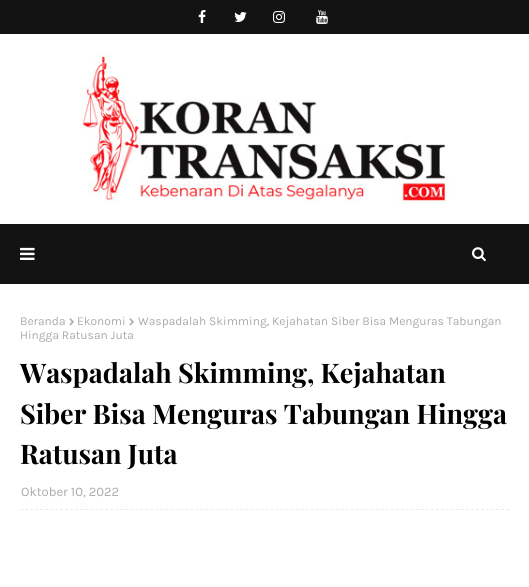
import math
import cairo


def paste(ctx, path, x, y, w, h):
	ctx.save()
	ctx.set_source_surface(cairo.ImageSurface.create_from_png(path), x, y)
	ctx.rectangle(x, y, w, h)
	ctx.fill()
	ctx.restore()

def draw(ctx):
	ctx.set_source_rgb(1, 1, 1)
	ctx.paint()
	ctx.set_source_rgb(0.075, 0.075, 0.075)
	ctx.rectangle(0, 0, 529, 34)
	ctx.fill()
	paste(ctx, 'media/1.png', 198, 10, 8, 13)
	paste(ctx, 'media/2.png', 234, 12, 13, 10)
	paste(ctx, 'media/3.png', 273, 11, 12, 12)
	paste(ctx, 'media/4.png', 316, 10, 12, 14)
	paste(ctx, 'media/5.png', 81, 54, 368, 150)
	ctx.rectangle(0, 224, 529, 60)
	ctx.fill()
	paste(ctx, 'media/6.png', 20, 247, 15, 13)
	paste(ctx, 'media/7.png', 472, 247, 14, 15)
	ctx.select_font_face('Karla')
	ctx.set_font_size(12)
	ctx.set_source_rgb(0.667, 0.667, 0.667)
	ctx.move_to(20, 325)
	ctx.show_text('Beranda')
	paste(ctx, 'media/8.png', 69, 318, 5, 8)
	ctx.move_to(77, 325)
	ctx.show_text('Ekonomi')
	paste(ctx, 'media/8.png', 129, 318, 5, 8)
	ctx.move_to(138, 325)
	ctx.show_text('Waspadalah Skimming, Kejahatan Siber Bisa Menguras Tabungan')
	ctx.move_to(20, 339)
	ctx.show_text('Hingga Ratusan Juta')
	ctx.select_font_face('Playfair Display', cairo.FONT_SLANT_NORMAL, cairo.FONT_WEIGHT_BOLD)
	ctx.set_font_size(27)
	ctx.set_source_rgb(0, 0, 0)
	for x, y, s in [
		(20, 383, 'Waspadalah Skimming, Kejahatan'),
		(20, 424, 'Siber Bisa Menguras Tabungan Hingga'),
		(20, 464, 'Ratusan Juta'),
	]:
		ctx.move_to(x, y)
		ctx.show_text(s)
	ctx.select_font_face('Karla')
	ctx.set_font_size(13)
	ctx.set_source_rgb(0.667, 0.667, 0.667)
	ctx.move_to(21, 496)
	ctx.show_text('Oktober 10, 2022')
	ctx.new_path()
	ctx.move_to(20, 509.5)
	ctx.line_to(509, 509.5)
	ctx.set_source_rgb(0.922, 0.922, 0.922)
	ctx.set_line_width(1)
	ctx.set_dash([3, 2.01])
	ctx.stroke()


surface = cairo.ImageSurface(cairo.FORMAT_RGB24, 529, 587)
ctx = cairo.Context(surface)
options = cairo.FontOptions()
options.set_hint_metrics(cairo.HINT_METRICS_OFF)
options.set_hint_style(cairo.HINT_STYLE_NONE)
ctx.set_font_options(options)
ctx.set_miter_limit(4)
draw(ctx)
surface.write_to_png('image.png')
